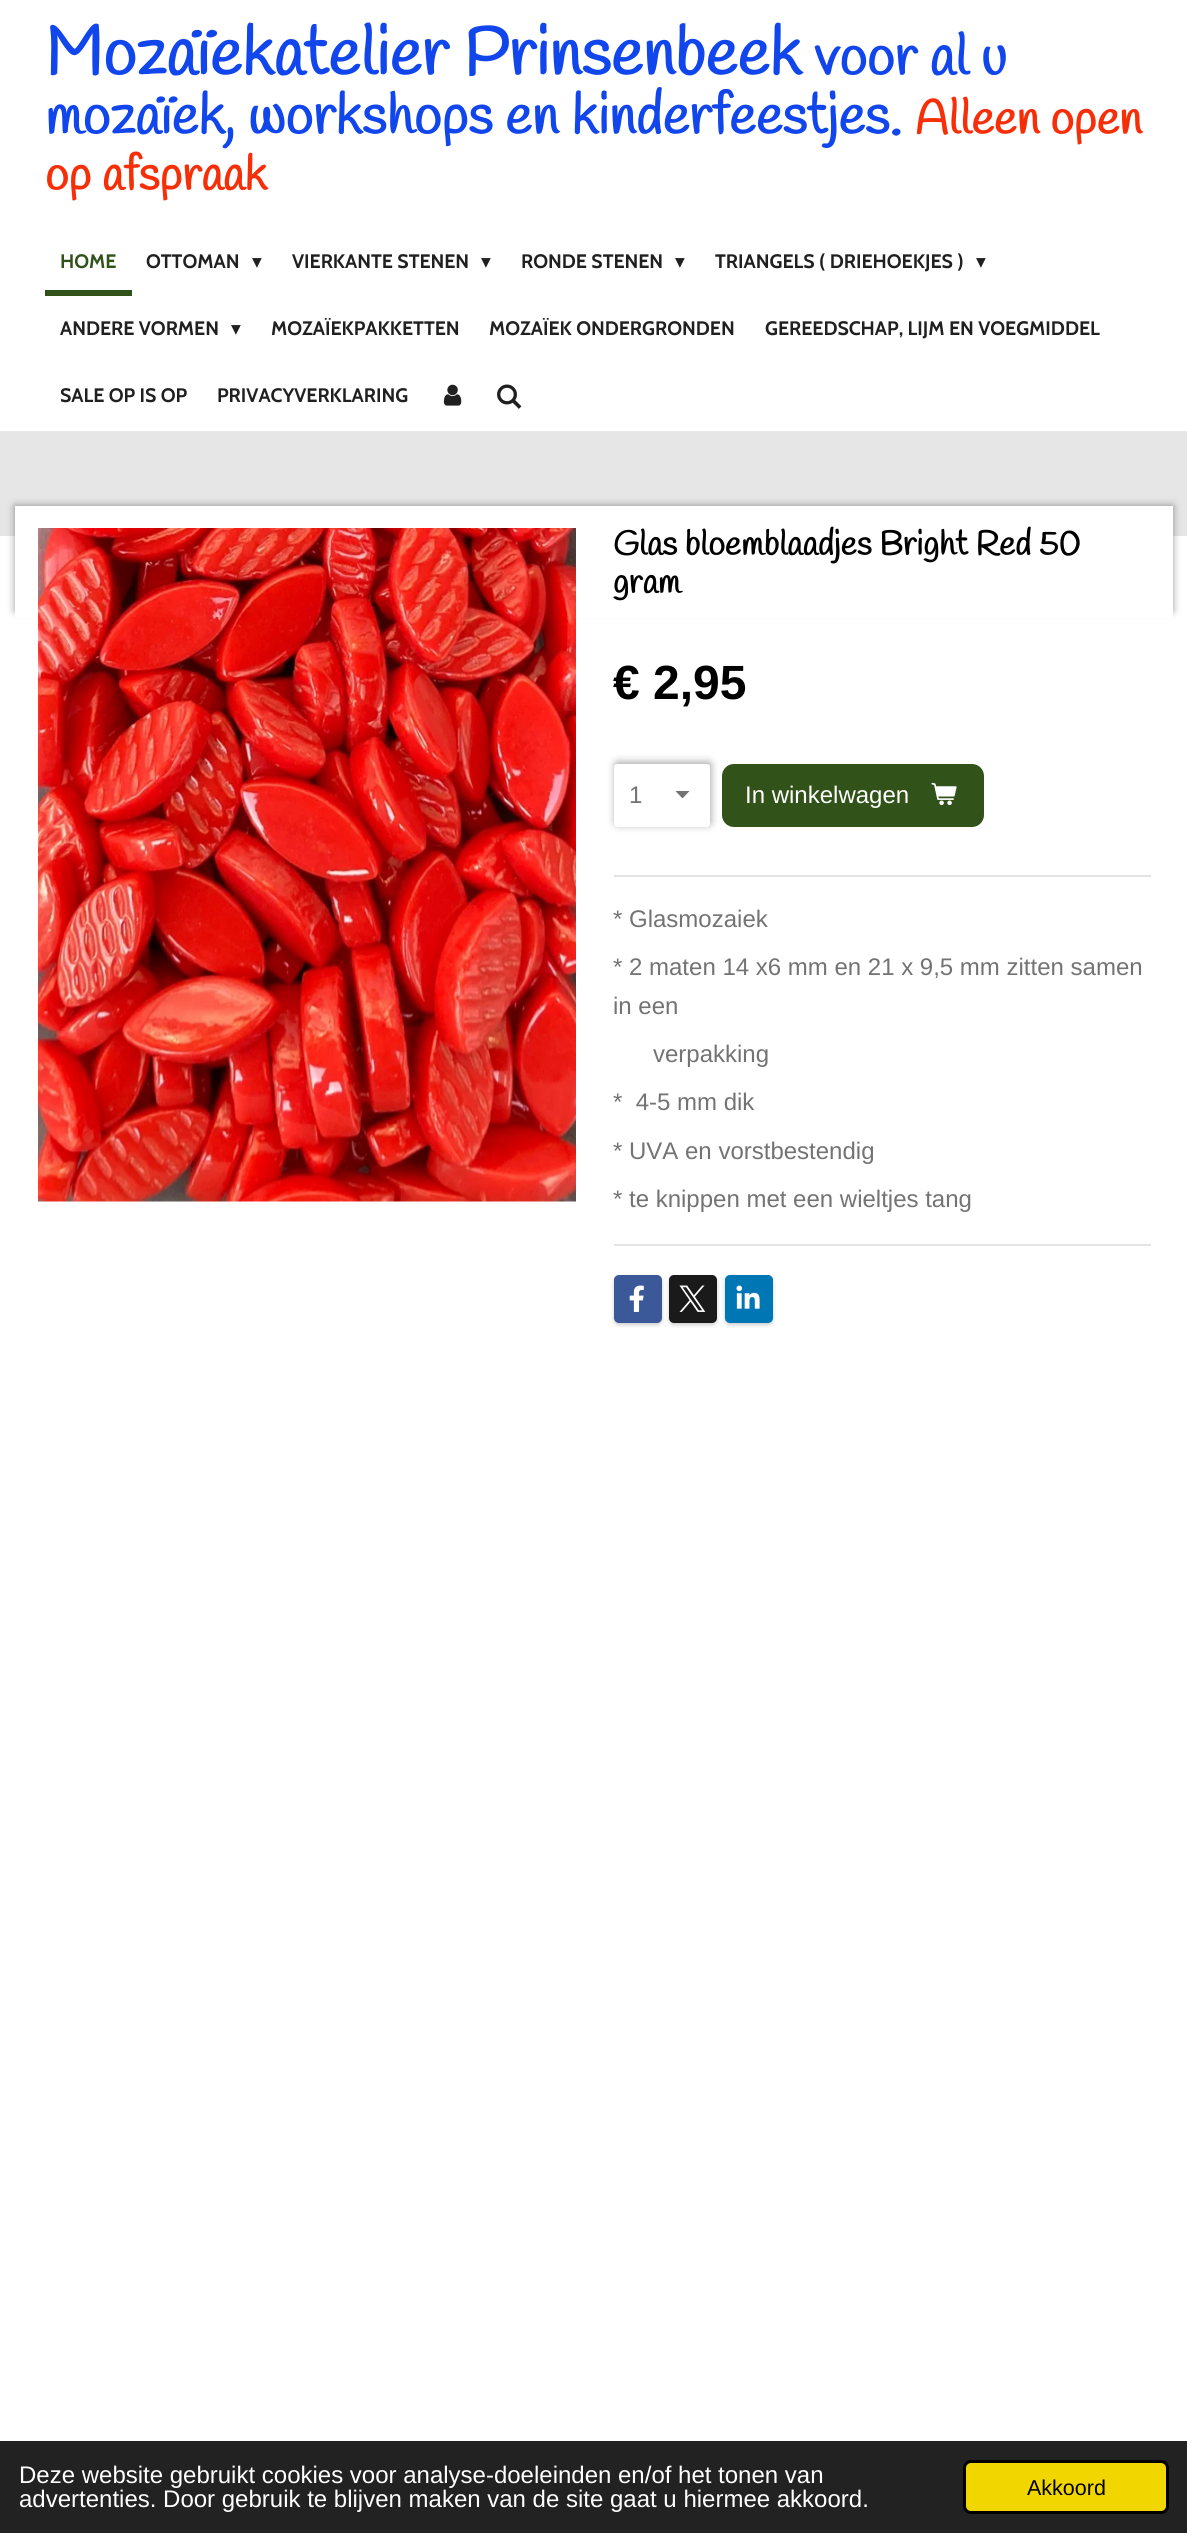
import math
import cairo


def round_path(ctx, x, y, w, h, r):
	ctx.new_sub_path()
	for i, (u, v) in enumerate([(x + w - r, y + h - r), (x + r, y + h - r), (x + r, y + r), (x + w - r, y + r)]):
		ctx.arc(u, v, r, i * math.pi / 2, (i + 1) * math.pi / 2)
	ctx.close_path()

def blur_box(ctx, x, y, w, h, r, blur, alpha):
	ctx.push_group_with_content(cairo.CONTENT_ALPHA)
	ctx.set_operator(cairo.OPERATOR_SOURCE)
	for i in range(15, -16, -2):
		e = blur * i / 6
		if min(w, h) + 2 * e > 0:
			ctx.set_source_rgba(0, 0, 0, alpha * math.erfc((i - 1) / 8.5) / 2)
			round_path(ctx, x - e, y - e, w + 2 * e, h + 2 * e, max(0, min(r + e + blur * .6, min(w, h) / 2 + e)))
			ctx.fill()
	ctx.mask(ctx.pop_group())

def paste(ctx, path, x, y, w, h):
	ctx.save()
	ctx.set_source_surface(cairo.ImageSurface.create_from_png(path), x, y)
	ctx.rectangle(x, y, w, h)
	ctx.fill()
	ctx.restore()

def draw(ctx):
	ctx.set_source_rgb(1, 1, 1)
	ctx.paint()
	ctx.select_font_face('Handlee', cairo.FONT_SLANT_NORMAL, cairo.FONT_WEIGHT_BOLD)
	ctx.set_font_size(67.5)
	ctx.set_source_rgb(0.063, 0.275, 0.925)
	ctx.move_to(45, 75)
	ctx.show_text('Mozaïekatelier Prinsenbeek')
	ctx.set_font_size(56.25)
	ctx.move_to(814, 75)
	ctx.show_text('voor al u')
	ctx.move_to(45, 134)
	ctx.show_text('mozaïek, workshops en kinderfeestjes.')
	ctx.set_font_size(48)
	ctx.set_source_rgb(0.961, 0.184, 0.039)
	ctx.move_to(915, 134)
	ctx.show_text('Alleen open')
	ctx.move_to(45, 190)
	ctx.show_text('op afspraak')
	ctx.set_source_rgb(0.192, 0.322, 0.098)
	ctx.rectangle(45, 290, 87, 6)
	ctx.fill()
	ctx.select_font_face('Cabin', cairo.FONT_SLANT_NORMAL, cairo.FONT_WEIGHT_BOLD)
	ctx.set_font_size(19.5)
	ctx.move_to(60, 268)
	ctx.show_text('HOME')
	ctx.set_source_rgb(0.125, 0.125, 0.125)
	ctx.move_to(146, 268)
	ctx.show_text('OTTOMAN')
	ctx.select_font_face('DejaVu Sans')
	ctx.move_to(252, 268)
	ctx.show_text('▾')
	ctx.select_font_face('Cabin', cairo.FONT_SLANT_NORMAL, cairo.FONT_WEIGHT_BOLD)
	ctx.move_to(292, 268)
	ctx.show_text('VIERKANTE STENEN')
	ctx.select_font_face('DejaVu Sans')
	ctx.move_to(481, 268)
	ctx.show_text('▾')
	ctx.select_font_face('Cabin', cairo.FONT_SLANT_NORMAL, cairo.FONT_WEIGHT_BOLD)
	ctx.move_to(521, 268)
	ctx.show_text('RONDE STENEN')
	ctx.select_font_face('DejaVu Sans')
	ctx.move_to(675, 268)
	ctx.show_text('▾')
	ctx.select_font_face('Cabin', cairo.FONT_SLANT_NORMAL, cairo.FONT_WEIGHT_BOLD)
	ctx.move_to(715, 268)
	ctx.show_text('TRIANGELS ( DRIEHOEKJES )')
	ctx.select_font_face('DejaVu Sans')
	ctx.move_to(976, 268)
	ctx.show_text('▾')
	ctx.select_font_face('Cabin', cairo.FONT_SLANT_NORMAL, cairo.FONT_WEIGHT_BOLD)
	ctx.move_to(60, 335)
	ctx.show_text('ANDERE VORMEN')
	ctx.select_font_face('DejaVu Sans')
	ctx.move_to(231, 335)
	ctx.show_text('▾')
	ctx.select_font_face('Cabin', cairo.FONT_SLANT_NORMAL, cairo.FONT_WEIGHT_BOLD)
	for x, y, s in [
		(271, 335, 'MOZAÏEKPAKKETTEN'),
		(489, 335, 'MOZAÏEK ONDERGRONDEN'),
		(765, 335, 'GEREEDSCHAP, LIJM EN VOEGMIDDEL'),
		(60, 402, 'SALE OP IS OP'),
		(217, 402, 'PRIVACYVERKLARING'),
	]:
		ctx.move_to(x, y)
		ctx.show_text(s)
	paste(ctx, 'media/1.png', 443, 384, 19, 22)
	paste(ctx, 'media/2.png', 497, 384, 25, 25)
	ctx.set_source_rgb(0.902, 0.902, 0.902)
	ctx.rectangle(0, 431, 1187, 105)
	ctx.fill()
	ctx.set_source_rgb(0, 0, 0)
	blur_box(ctx, 15, 506, 1158, 105, 0, 4, 0.4)
	ctx.set_source_rgb(1, 1, 1)
	ctx.rectangle(15, 506, 1158, 112)
	ctx.fill()
	paste(ctx, 'media/3.png', 38, 528, 538, 674)
	ctx.select_font_face('Handlee', cairo.FONT_SLANT_NORMAL, cairo.FONT_WEIGHT_BOLD)
	ctx.set_font_size(34)
	ctx.set_source_rgb(0, 0, 0)
	ctx.move_to(613, 555)
	ctx.show_text('Glas bloemblaadjes Bright Red 50')
	ctx.move_to(613, 593)
	ctx.show_text('gram')
	ctx.select_font_face('Liberation Sans', cairo.FONT_SLANT_NORMAL, cairo.FONT_WEIGHT_BOLD)
	ctx.set_font_size(48)
	ctx.move_to(613, 699)
	ctx.show_text('€ 2,95')
	ctx.set_source_rgb(0, 0, 0)
	blur_box(ctx, 615, 762, 96, 63, 3, 4, 0.35)
	ctx.set_source_rgb(1, 1, 1)
	round_path(ctx, 614, 764, 96, 63, 3)
	ctx.fill()
	ctx.save()
	ctx.rectangle(675, 791, 15, 7)
	ctx.clip()
	ctx.set_source_rgb(0.451, 0.451, 0.451)
	ctx.new_path()
	ctx.move_to(682.5, 798.5)
	ctx.line_to(675, 790.5)
	ctx.line_to(690, 790.5)
	ctx.close_path()
	ctx.fill()
	ctx.restore()
	ctx.select_font_face('Liberation Sans')
	ctx.set_font_size(24)
	ctx.set_source_rgb(0.451, 0.451, 0.451)
	ctx.move_to(629, 803)
	ctx.show_text('1')
	ctx.set_source_rgb(0.192, 0.322, 0.098)
	round_path(ctx, 722, 764, 262, 63, 12)
	ctx.fill()
	ctx.set_source_rgb(1, 1, 1)
	ctx.move_to(745, 803)
	ctx.show_text('In winkelwagen')
	paste(ctx, 'media/4.png', 931, 782, 26, 24)
	ctx.set_source_rgb(0.89, 0.89, 0.89)
	ctx.rectangle(614, 875, 537, 2)
	ctx.fill()
	ctx.set_source_rgb(0.451, 0.451, 0.451)
	for x, y, s in [
		(613, 927, '* Glasmozaiek'),
		(613, 975, '* 2 maten 14 x6 mm en 21 x 9,5 mm zitten samen'),
		(613, 1014, 'in een'),
		(653, 1062, 'verpakking'),
		(613, 1110, '*  4-5 mm dik'),
		(613, 1159, '* UVA en vorstbestendig'),
		(613, 1207, '* te knippen met een wieltjes tang'),
	]:
		ctx.move_to(x, y)
		ctx.show_text(s)
	ctx.set_source_rgb(0.89, 0.89, 0.89)
	ctx.rectangle(614, 1244, 537, 2)
	ctx.fill()
	ctx.set_source_rgb(0, 0, 0)
	blur_box(ctx, 614, 1277, 48, 48, 5, 2, 0.2)
	ctx.set_source_rgb(0.231, 0.349, 0.596)
	round_path(ctx, 614, 1275, 48, 48, 5)
	ctx.fill()
	paste(ctx, 'media/5.png', 629, 1285, 15, 27)
	ctx.set_source_rgb(0, 0, 0)
	blur_box(ctx, 669, 1277, 48, 48, 5, 2, 0.2)
	ctx.set_source_rgb(0.102, 0.102, 0.102)
	round_path(ctx, 669, 1275, 48, 48, 5)
	ctx.fill()
	paste(ctx, 'media/6.png', 679, 1285, 27, 27)
	ctx.set_source_rgb(0, 0, 0)
	blur_box(ctx, 725, 1277, 48, 48, 5, 2, 0.2)
	ctx.set_source_rgb(0, 0.467, 0.71)
	round_path(ctx, 725, 1275, 48, 48, 5)
	ctx.fill()
	paste(ctx, 'media/7.png', 736, 1285, 24, 24)
	ctx.set_source_rgb(0.133, 0.133, 0.133)
	ctx.rectangle(0, 2441, 1187, 92)
	ctx.fill()
	ctx.set_source_rgb(1, 1, 1)
	ctx.move_to(19, 2483)
	ctx.show_text('Deze website gebruikt cookies voor analyse-doeleinden en/of het tonen van')
	ctx.move_to(19, 2507)
	ctx.show_text('advertenties. Door gebruik te blijven maken van de site gaat u hiermee akkoord.')
	ctx.set_source_rgb(0.945, 0.839, 0)
	round_path(ctx, 964.5, 2461.5, 203, 51, 6.5)
	ctx.fill_preserve()
	ctx.set_source_rgb(0, 0, 0)
	ctx.set_line_width(3)
	ctx.stroke()
	ctx.set_font_size(21.5)
	ctx.move_to(1027, 2495)
	ctx.show_text('Akkoord')


surface = cairo.ImageSurface(cairo.FORMAT_RGB24, 1187, 2533)
ctx = cairo.Context(surface)
options = cairo.FontOptions()
options.set_hint_metrics(cairo.HINT_METRICS_OFF)
options.set_hint_style(cairo.HINT_STYLE_NONE)
ctx.set_font_options(options)
ctx.set_miter_limit(4)
draw(ctx)
surface.write_to_png('image.png')
